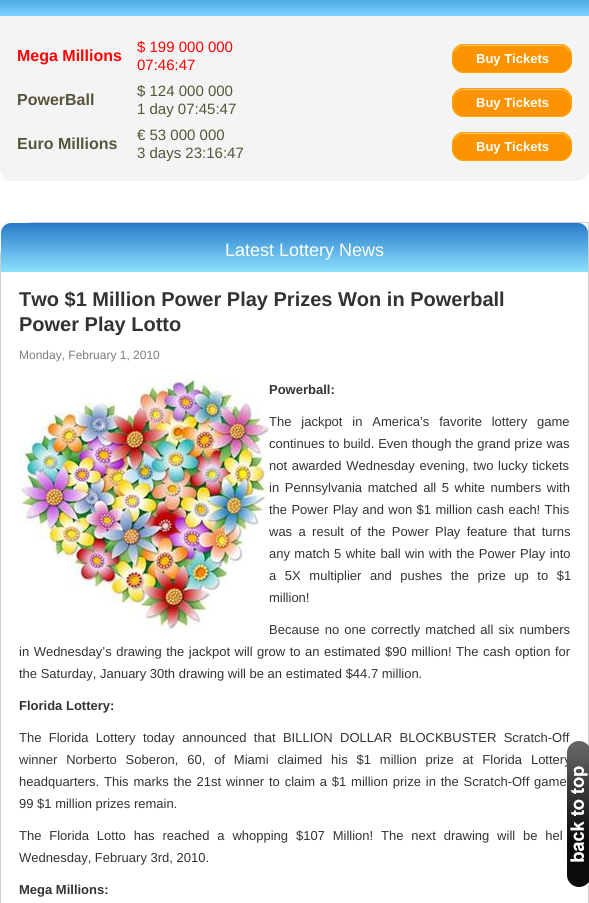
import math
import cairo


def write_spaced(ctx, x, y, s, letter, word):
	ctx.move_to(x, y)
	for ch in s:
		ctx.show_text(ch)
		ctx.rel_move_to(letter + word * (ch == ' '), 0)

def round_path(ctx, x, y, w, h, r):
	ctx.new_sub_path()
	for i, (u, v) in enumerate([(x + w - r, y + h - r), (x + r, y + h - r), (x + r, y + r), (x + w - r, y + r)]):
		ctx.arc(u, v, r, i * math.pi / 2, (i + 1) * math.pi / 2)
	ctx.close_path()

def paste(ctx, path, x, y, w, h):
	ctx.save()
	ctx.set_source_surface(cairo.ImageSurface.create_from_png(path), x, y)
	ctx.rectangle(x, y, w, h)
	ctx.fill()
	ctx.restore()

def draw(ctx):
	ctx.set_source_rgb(1, 1, 1)
	ctx.paint()
	ctx.set_source_rgb(0.898, 0.902, 0.902)
	ctx.new_path()
	ctx.move_to(35, -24)
	ctx.line_to(579, -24)
	ctx.curve_to(585, -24, 589, -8, 589, 11)
	ctx.line_to(589, 171)
	ctx.curve_to(589, 177, 573, 181, 554, 181)
	ctx.line_to(10, 181)
	ctx.curve_to(4, 181, 0, 165, 0, 146)
	ctx.line_to(0, -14)
	ctx.curve_to(0, -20, 16, -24, 35, -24)
	ctx.close_path()
	ctx.fill()
	gradient = cairo.LinearGradient(295, -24, 295, 16)
	gradient.add_color_stop_rgba(0, 0.075, 0.424, 0.745, 1)
	gradient.add_color_stop_rgba(1, 0.475, 0.824, 1, 1)
	ctx.set_source(gradient)
	ctx.rectangle(0, 0, 589, 16)
	ctx.fill()
	ctx.set_source_rgb(0.957, 0.957, 0.957)
	ctx.new_path()
	ctx.move_to(0, 16)
	ctx.line_to(589, 16)
	ctx.line_to(589, 169)
	ctx.curve_to(589, 175.5, 583.5, 181, 577, 181)
	ctx.line_to(12, 181)
	ctx.curve_to(5.5, 181, 0, 175.5, 0, 169)
	ctx.close_path()
	ctx.fill()
	ctx.select_font_face('Liberation Sans', cairo.FONT_SLANT_NORMAL, cairo.FONT_WEIGHT_BOLD)
	ctx.set_font_size(16)
	ctx.set_source_rgb(1, 0, 0)
	ctx.move_to(17, 61)
	ctx.show_text('Mega Millions')
	ctx.select_font_face('Liberation Sans')
	ctx.set_font_size(15)
	ctx.move_to(137, 52)
	ctx.show_text('$ 199 000 000')
	ctx.move_to(137, 70)
	ctx.show_text('07:46:47')
	ctx.set_source_rgb(0.988, 0.58, 0.008)
	round_path(ctx, 452, 44, 120, 29, 12)
	ctx.fill()
	ctx.set_source_rgb(0.996, 0.792, 0.506)
	ctx.new_path()
	ctx.move_to(464, 46)
	ctx.line_to(560, 46)
	ctx.curve_to(566, 46, 571, 51, 571, 57)
	ctx.curve_to(571, 42, 554, 45, 544, 45)
	ctx.line_to(480, 45)
	ctx.curve_to(470, 45, 453, 42, 453, 57)
	ctx.curve_to(453, 51, 458, 46, 464, 46)
	ctx.close_path()
	ctx.fill()
	round_path(ctx, 452.5, 44.5, 119, 28, 11.5)
	ctx.set_source_rgb(1, 0.647, 0)
	ctx.set_line_width(1)
	ctx.stroke()
	ctx.select_font_face('Liberation Sans', cairo.FONT_SLANT_NORMAL, cairo.FONT_WEIGHT_BOLD)
	ctx.set_font_size(13)
	ctx.set_source_rgb(1, 1, 1)
	ctx.move_to(476, 63)
	ctx.show_text('Buy Tickets')
	ctx.set_font_size(16)
	ctx.set_source_rgb(0.337, 0.333, 0.231)
	ctx.move_to(17, 105)
	ctx.show_text('PowerBall')
	ctx.select_font_face('Liberation Sans')
	ctx.set_font_size(15)
	ctx.move_to(137, 96)
	ctx.show_text('$ 124 000 000')
	ctx.move_to(137, 114)
	ctx.show_text('1 day 07:45:47')
	ctx.set_source_rgb(0.988, 0.58, 0.008)
	round_path(ctx, 452, 88, 120, 29, 12)
	ctx.fill()
	ctx.set_source_rgb(0.996, 0.792, 0.506)
	ctx.new_path()
	ctx.move_to(464, 90)
	ctx.line_to(560, 90)
	ctx.curve_to(566, 90, 571, 95, 571, 101)
	ctx.curve_to(571, 86, 554, 89, 544, 89)
	ctx.line_to(480, 89)
	ctx.curve_to(470, 89, 453, 86, 453, 101)
	ctx.curve_to(453, 95, 458, 90, 464, 90)
	ctx.close_path()
	ctx.fill()
	round_path(ctx, 452.5, 88.5, 119, 28, 11.5)
	ctx.set_source_rgb(1, 0.647, 0)
	ctx.stroke()
	ctx.select_font_face('Liberation Sans', cairo.FONT_SLANT_NORMAL, cairo.FONT_WEIGHT_BOLD)
	ctx.set_font_size(13)
	ctx.set_source_rgb(1, 1, 1)
	ctx.move_to(476, 107)
	ctx.show_text('Buy Tickets')
	ctx.set_font_size(16)
	ctx.set_source_rgb(0.337, 0.333, 0.231)
	ctx.move_to(17, 149)
	ctx.show_text('Euro Millions')
	ctx.select_font_face('Liberation Sans')
	ctx.set_font_size(15)
	ctx.move_to(137, 140)
	ctx.show_text('€ 53 000 000')
	ctx.move_to(137, 158)
	ctx.show_text('3 days 23:16:47')
	ctx.set_source_rgb(0.988, 0.58, 0.008)
	round_path(ctx, 452, 132, 120, 29, 12)
	ctx.fill()
	ctx.set_source_rgb(0.996, 0.792, 0.506)
	ctx.new_path()
	ctx.move_to(464, 134)
	ctx.line_to(560, 134)
	ctx.curve_to(566, 134, 571, 139, 571, 145)
	ctx.curve_to(571, 130, 554, 133, 544, 133)
	ctx.line_to(480, 133)
	ctx.curve_to(470, 133, 453, 130, 453, 145)
	ctx.curve_to(453, 139, 458, 134, 464, 134)
	ctx.close_path()
	ctx.fill()
	round_path(ctx, 452.5, 132.5, 119, 28, 11.5)
	ctx.set_source_rgb(1, 0.647, 0)
	ctx.stroke()
	ctx.select_font_face('Liberation Sans', cairo.FONT_SLANT_NORMAL, cairo.FONT_WEIGHT_BOLD)
	ctx.set_font_size(13)
	ctx.set_source_rgb(1, 1, 1)
	ctx.move_to(476, 151)
	ctx.show_text('Buy Tickets')
	ctx.new_path()
	ctx.move_to(35, 222.5)
	ctx.line_to(588.5, 222.5)
	ctx.line_to(588.5, 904)
	ctx.curve_to(588.5, 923, 573, 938.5, 554, 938.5)
	ctx.line_to(0.5, 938.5)
	ctx.line_to(0.5, 257)
	ctx.curve_to(0.5, 238, 16, 222.5, 35, 222.5)
	ctx.close_path()
	ctx.set_source_rgb(0.808, 0.812, 0.812)
	ctx.stroke()
	gradient = cairo.LinearGradient(295, 223, 295, 272)
	gradient.add_color_stop_rgba(0, 0.153, 0.482, 0.788, 1)
	gradient.add_color_stop_rgba(1, 0.553, 0.882, 1, 1)
	ctx.set_source(gradient)
	ctx.new_path()
	ctx.move_to(11, 223)
	ctx.line_to(578, 223)
	ctx.curve_to(583.5, 223, 588, 227.5, 588, 233)
	ctx.line_to(588, 272)
	ctx.line_to(1, 272)
	ctx.line_to(1, 233)
	ctx.curve_to(1, 227.5, 5.5, 223, 11, 223)
	ctx.close_path()
	ctx.fill()
	ctx.select_font_face('Liberation Sans')
	ctx.set_font_size(18)
	ctx.set_source_rgb(1, 1, 1)
	ctx.move_to(225, 256)
	ctx.show_text('Latest Lottery News')
	ctx.select_font_face('Liberation Sans', cairo.FONT_SLANT_NORMAL, cairo.FONT_WEIGHT_BOLD)
	ctx.set_font_size(20)
	ctx.set_source_rgb(0.2, 0.2, 0.2)
	ctx.move_to(19, 306)
	ctx.show_text('Two $1 Million Power Play Prizes Won in Powerball')
	ctx.move_to(19, 331)
	ctx.show_text('Power Play Lotto')
	ctx.select_font_face('Liberation Sans')
	ctx.set_font_size(12)
	ctx.set_source_rgb(0.486, 0.486, 0.486)
	ctx.move_to(19, 359)
	ctx.show_text('Monday, February 1, 2010')
	paste(ctx, 'media/1.png', 19, 379, 250, 250)
	ctx.select_font_face('Liberation Sans', cairo.FONT_SLANT_NORMAL, cairo.FONT_WEIGHT_BOLD)
	ctx.set_font_size(13)
	ctx.set_source_rgb(0.2, 0.2, 0.2)
	ctx.move_to(269, 394)
	ctx.show_text('Powerball:')
	ctx.select_font_face('Liberation Sans')
	write_spaced(ctx, 269, 426, 'The jackpot in America’s favorite lottery game', 0, 6.25)
	write_spaced(ctx, 269, 448, 'continues to build. Even though the grand prize was', 0, 0.25)
	write_spaced(ctx, 269, 470, 'not awarded Wednesday evening, two lucky tickets', 0, 1)
	write_spaced(ctx, 269, 492, 'in Pennsylvania matched all 5 white numbers with', 0, 2)
	write_spaced(ctx, 269, 514, 'the Power Play and won $1 million cash each! This', 0, 0.75)
	write_spaced(ctx, 269, 536, 'was a result of the Power Play feature that turns', 0, 2.75)
	write_spaced(ctx, 269, 558, 'any match 5 white ball win with the Power Play into', 0, 0.75)
	write_spaced(ctx, 269, 580, 'a 5X multiplier and pushes the prize up to $1', 0, 5)
	ctx.move_to(269, 602)
	ctx.show_text('million!')
	write_spaced(ctx, 269, 634, 'Because no one correctly matched all six numbers', 0, 1.5)
	write_spaced(ctx, 19, 656, 'in Wednesday’s drawing the jackpot will grow to an estimated $90 million! The cash option for', 0, 0.9)
	ctx.move_to(19, 678)
	ctx.show_text('the Saturday, January 30th drawing will be an estimated $44.7 million.')
	ctx.select_font_face('Liberation Sans', cairo.FONT_SLANT_NORMAL, cairo.FONT_WEIGHT_BOLD)
	ctx.move_to(19, 710)
	ctx.show_text('Florida Lottery:')
	ctx.select_font_face('Liberation Sans')
	write_spaced(ctx, 19, 742, 'The Florida Lottery today announced that BILLION DOLLAR BLOCKBUSTER Scratch-Off', 0, 3.75)
	write_spaced(ctx, 19, 764, 'winner Norberto Soberon, 60, of Miami claimed his $1 million prize at Florida Lottery', 0, 5.25)
	write_spaced(ctx, 19, 786, 'headquarters. This marks the 21st winner to claim a $1 million prize in the Scratch-Off game', 0, 1.2)
	ctx.move_to(19, 808)
	ctx.show_text('99 $1 million prizes remain.')
	write_spaced(ctx, 19, 840, 'The Florida Lotto has reached a whopping $107 Million! The next drawing will be hel', 0, 4.25)
	ctx.move_to(19, 862)
	ctx.show_text('Wednesday, February 3rd, 2010.')
	ctx.select_font_face('Liberation Sans', cairo.FONT_SLANT_NORMAL, cairo.FONT_WEIGHT_BOLD)
	ctx.move_to(19, 894)
	ctx.show_text('Mega Millions:')
	paste(ctx, 'media/2.png', 567, 741, 22, 146)


surface = cairo.ImageSurface(cairo.FORMAT_RGB24, 589, 903)
ctx = cairo.Context(surface)
options = cairo.FontOptions()
options.set_hint_metrics(cairo.HINT_METRICS_OFF)
options.set_hint_style(cairo.HINT_STYLE_NONE)
ctx.set_font_options(options)
ctx.set_miter_limit(4)
draw(ctx)
surface.write_to_png('image.png')
